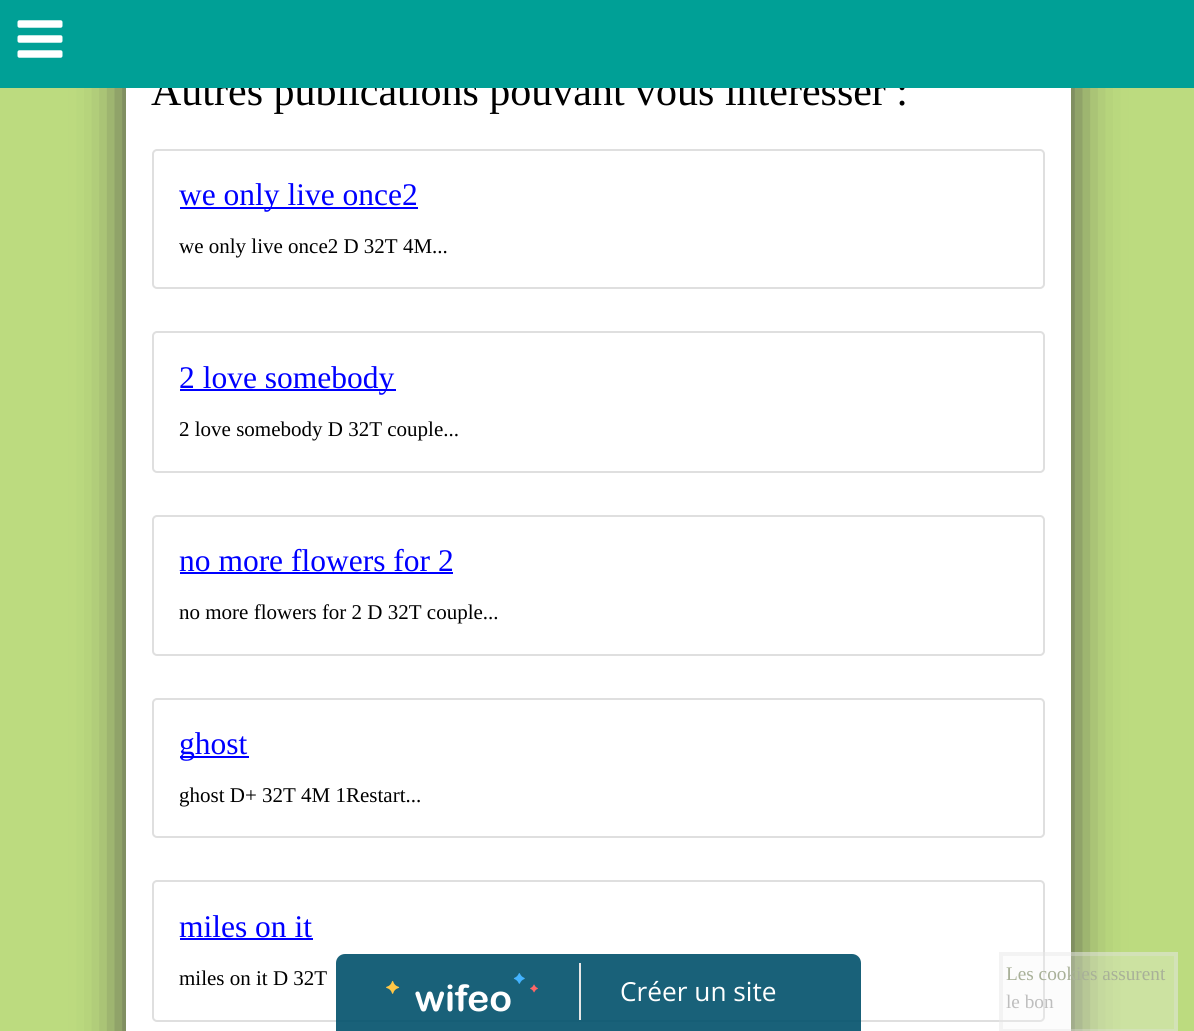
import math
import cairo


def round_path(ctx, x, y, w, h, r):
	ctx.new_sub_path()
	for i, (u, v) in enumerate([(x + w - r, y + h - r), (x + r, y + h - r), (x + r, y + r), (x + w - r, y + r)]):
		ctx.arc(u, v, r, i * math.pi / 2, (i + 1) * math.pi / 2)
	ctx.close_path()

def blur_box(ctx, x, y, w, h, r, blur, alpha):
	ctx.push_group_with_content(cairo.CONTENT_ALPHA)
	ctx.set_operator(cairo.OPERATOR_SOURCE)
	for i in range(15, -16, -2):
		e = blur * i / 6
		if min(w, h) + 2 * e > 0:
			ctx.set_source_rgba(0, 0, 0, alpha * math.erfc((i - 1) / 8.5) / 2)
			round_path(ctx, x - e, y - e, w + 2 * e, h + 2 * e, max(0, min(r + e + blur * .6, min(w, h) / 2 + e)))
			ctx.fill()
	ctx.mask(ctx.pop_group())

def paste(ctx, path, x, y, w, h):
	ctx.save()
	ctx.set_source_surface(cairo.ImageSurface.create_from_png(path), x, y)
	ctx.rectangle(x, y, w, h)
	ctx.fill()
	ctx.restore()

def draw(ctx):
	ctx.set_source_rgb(0.737, 0.859, 0.498)
	ctx.paint()
	ctx.set_source_rgb(0.267, 0.267, 0.267)
	blur_box(ctx, 126, -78, 945, 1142, 9, 23, 1)
	ctx.set_source_rgb(1, 1, 1)
	ctx.rectangle(126, 88, 945, 943)
	ctx.fill()
	ctx.select_font_face('Liberation Serif')
	ctx.set_font_size(42)
	ctx.set_source_rgb(0, 0, 0)
	ctx.move_to(151, 105)
	ctx.show_text('Autres publications pouvant vous intéresser :')
	ctx.set_source_rgb(0, 0.627, 0.588)
	ctx.rectangle(0, 0, 1194, 88)
	ctx.fill()
	paste(ctx, 'media/1.png', 17, 20, 46, 38)
	round_path(ctx, 153, 150, 891, 138, 4)
	ctx.set_source_rgb(0.875, 0.875, 0.875)
	ctx.stroke()
	ctx.set_source_rgb(0, 0, 1)
	ctx.rectangle(180, 207, 238, 2)
	ctx.fill()
	ctx.set_font_size(31.5)
	ctx.move_to(179, 205)
	ctx.show_text('we only live once2')
	ctx.set_font_size(21)
	ctx.set_source_rgb(0, 0, 0)
	ctx.move_to(179, 253)
	ctx.show_text('we only live once2 D 32T 4M...')
	round_path(ctx, 153, 332, 891, 140, 4)
	ctx.set_source_rgb(0.875, 0.875, 0.875)
	ctx.stroke()
	ctx.set_source_rgb(0, 0, 1)
	ctx.rectangle(180, 389, 216, 2)
	ctx.fill()
	ctx.set_font_size(31.5)
	ctx.move_to(179, 388)
	ctx.show_text('2 love somebody')
	ctx.set_font_size(21)
	ctx.set_source_rgb(0, 0, 0)
	ctx.move_to(179, 436)
	ctx.show_text('2 love somebody D 32T couple...')
	round_path(ctx, 153, 516, 891, 139, 4)
	ctx.set_source_rgb(0.875, 0.875, 0.875)
	ctx.stroke()
	ctx.set_font_size(31.5)
	ctx.set_source_rgb(0, 0, 1)
	ctx.move_to(179, 571)
	ctx.show_text('no more flowers for 2')
	ctx.rectangle(180, 572, 273, 2)
	ctx.fill()
	ctx.set_font_size(21)
	ctx.set_source_rgb(0, 0, 0)
	ctx.move_to(179, 619)
	ctx.show_text('no more flowers for 2 D 32T couple...')
	round_path(ctx, 153, 699, 891, 138, 4)
	ctx.set_source_rgb(0.875, 0.875, 0.875)
	ctx.stroke()
	ctx.set_source_rgb(0, 0, 1)
	ctx.rectangle(180, 756, 69, 2)
	ctx.fill()
	ctx.set_font_size(31.5)
	ctx.move_to(179, 754)
	ctx.show_text('ghost')
	ctx.set_font_size(21)
	ctx.set_source_rgb(0, 0, 0)
	ctx.move_to(179, 802)
	ctx.show_text('ghost D+ 32T 4M 1Restart...')
	round_path(ctx, 153, 881, 891, 140, 4)
	ctx.set_source_rgb(0.875, 0.875, 0.875)
	ctx.stroke()
	ctx.set_font_size(31.5)
	ctx.set_source_rgb(0, 0, 1)
	ctx.move_to(179, 937)
	ctx.show_text('miles on it')
	ctx.rectangle(180, 938, 133, 2)
	ctx.fill()
	ctx.set_font_size(21)
	ctx.set_source_rgb(0, 0, 0)
	ctx.move_to(179, 985)
	ctx.show_text('miles on it D 32T')
	ctx.set_source_rgba(0.969, 0.969, 0.969, 0.29)
	ctx.rectangle(999, 952, 179, 79)
	ctx.fill()
	ctx.rectangle(1001, 954, 175, 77)
	ctx.set_source_rgba(0.89, 0.89, 0.89, 0.34)
	ctx.set_line_width(4)
	ctx.stroke()
	ctx.set_font_size(19.25)
	ctx.set_source_rgb(0.659, 0.69, 0.596)
	ctx.move_to(1006, 980)
	ctx.show_text('Les cookies assurent')
	ctx.set_source_rgb(0.745, 0.745, 0.745)
	ctx.move_to(1006, 1008)
	ctx.show_text('le bon')
	ctx.set_source_rgba(0, 0.314, 0.42, 0.9)
	ctx.new_path()
	ctx.move_to(345, 954)
	ctx.line_to(852, 954)
	ctx.curve_to(857, 954, 861, 958, 861, 963)
	ctx.line_to(861, 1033)
	ctx.line_to(336, 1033)
	ctx.line_to(336, 963)
	ctx.curve_to(336, 958, 340, 954, 345, 954)
	ctx.close_path()
	ctx.fill()
	ctx.set_source_rgb(0.906, 0.906, 0.906)
	ctx.rectangle(579, 963, 2, 57)
	ctx.fill()
	paste(ctx, 'media/2.png', 386, 973, 152, 39)
	ctx.select_font_face('Open Sans')
	ctx.set_font_size(26.25)
	ctx.set_source_rgb(1, 1, 1)
	ctx.move_to(620, 1001)
	ctx.show_text('Créer un site')


surface = cairo.ImageSurface(cairo.FORMAT_RGB24, 1194, 1031)
ctx = cairo.Context(surface)
options = cairo.FontOptions()
options.set_hint_metrics(cairo.HINT_METRICS_OFF)
options.set_hint_style(cairo.HINT_STYLE_NONE)
ctx.set_font_options(options)
ctx.set_miter_limit(4)
draw(ctx)
surface.write_to_png('image.png')
